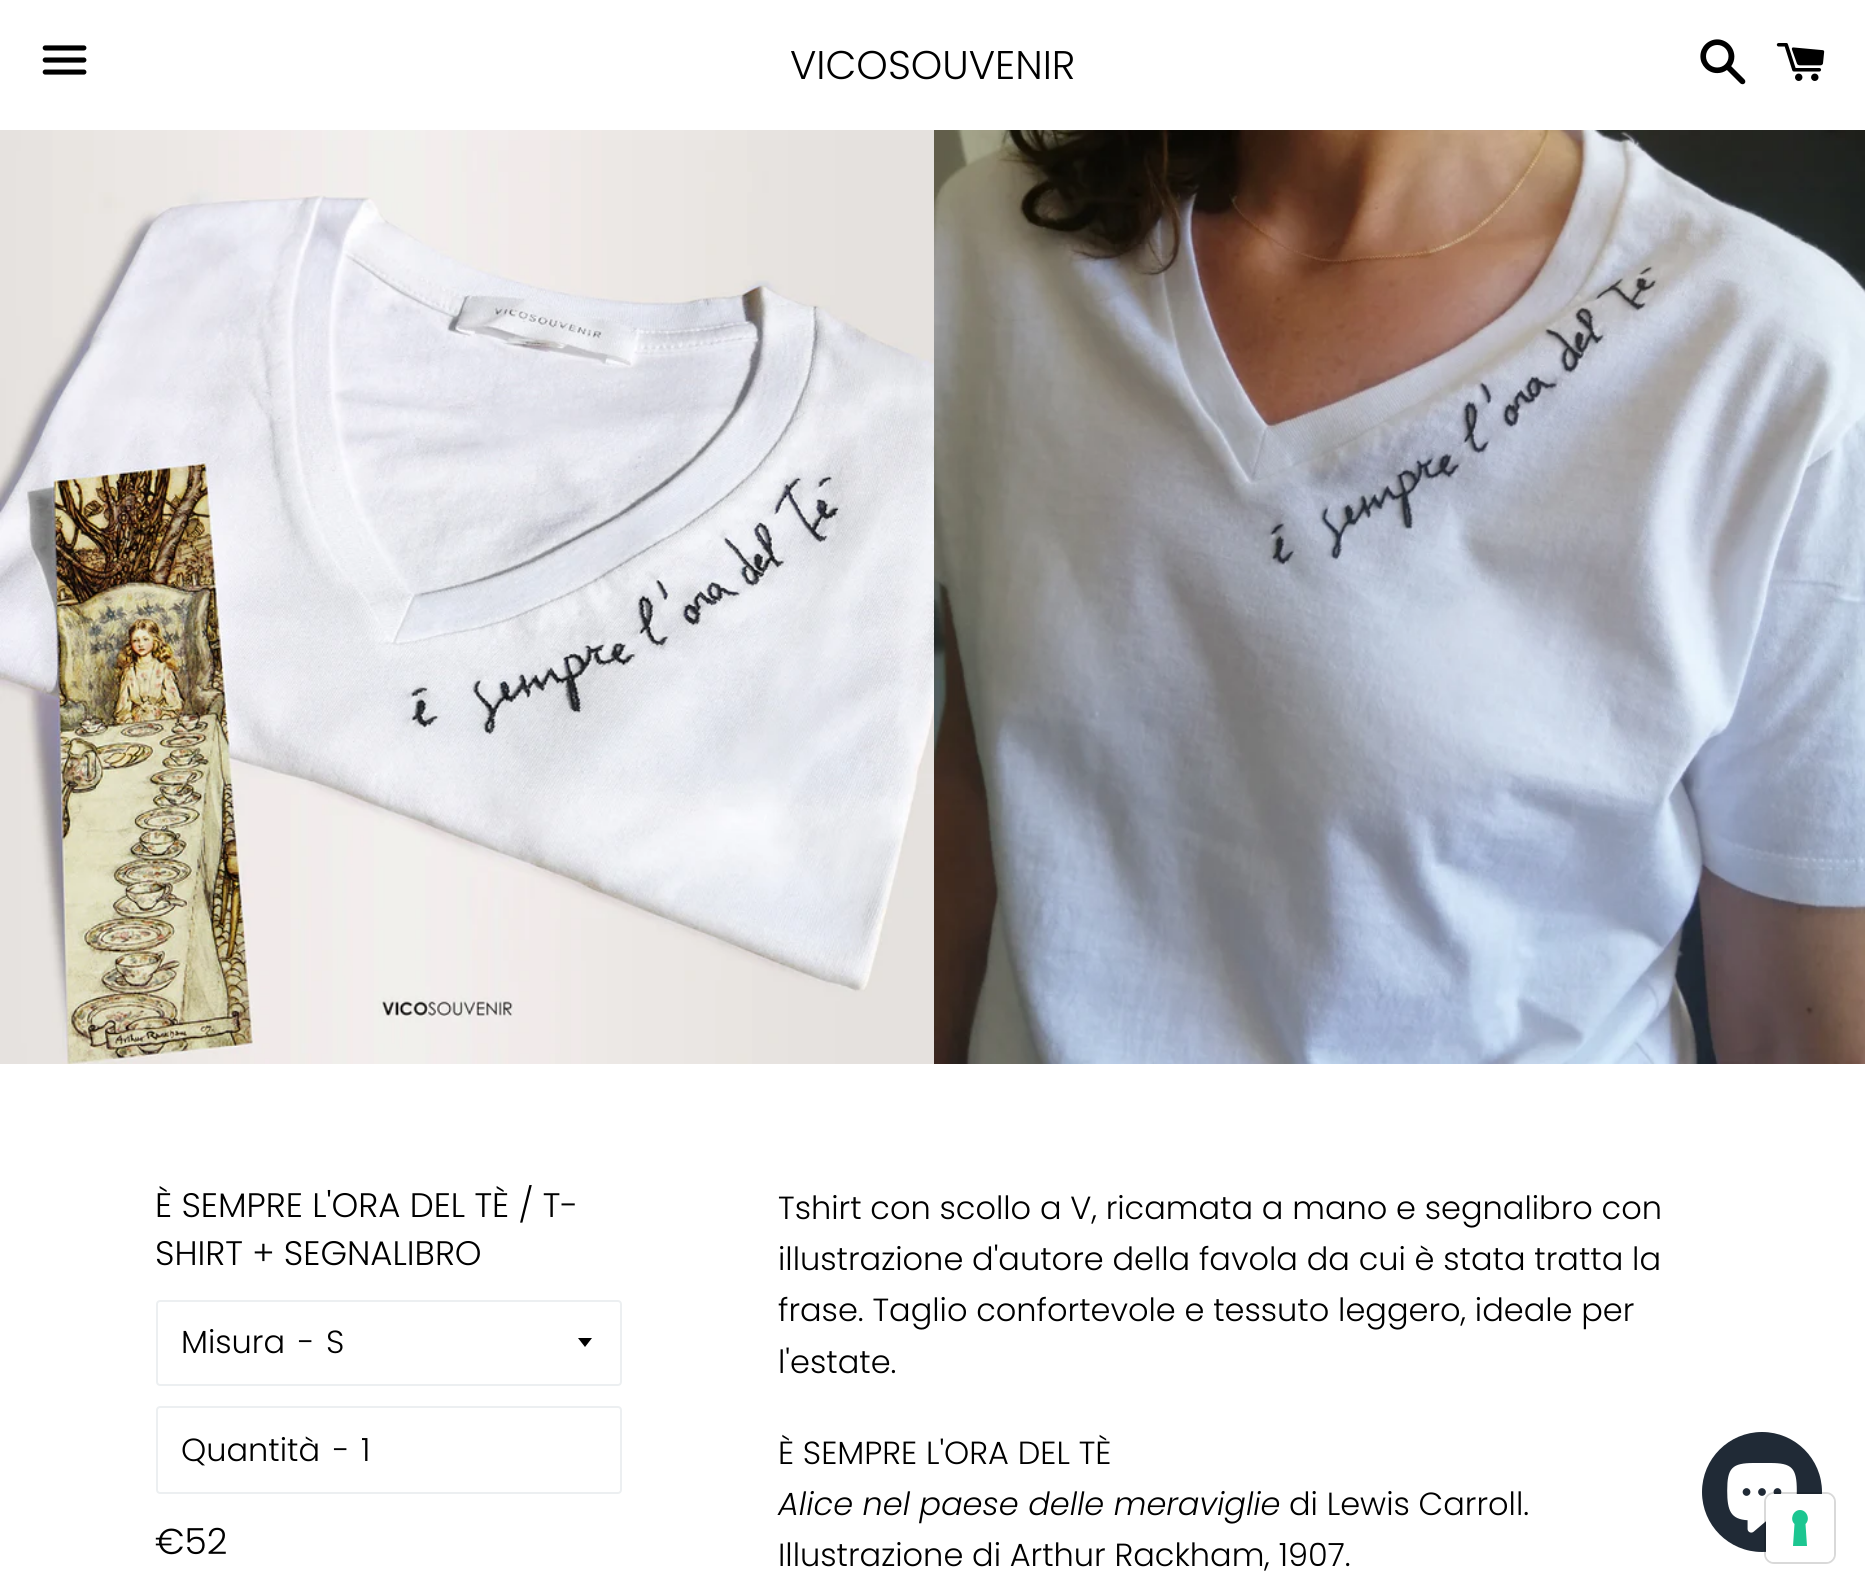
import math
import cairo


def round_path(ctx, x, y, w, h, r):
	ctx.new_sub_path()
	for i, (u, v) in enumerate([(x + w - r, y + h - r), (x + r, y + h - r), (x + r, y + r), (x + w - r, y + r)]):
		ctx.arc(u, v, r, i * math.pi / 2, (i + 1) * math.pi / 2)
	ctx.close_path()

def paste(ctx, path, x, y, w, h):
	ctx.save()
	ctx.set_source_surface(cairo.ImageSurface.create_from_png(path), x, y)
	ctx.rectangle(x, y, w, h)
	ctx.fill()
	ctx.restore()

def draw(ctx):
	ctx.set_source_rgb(1, 1, 1)
	ctx.paint()
	paste(ctx, 'media/1.png', 42, 45, 45, 30)
	ctx.select_font_face('Poppins Light')
	ctx.set_font_size(40)
	ctx.set_source_rgb(0, 0, 0)
	ctx.move_to(790, 79)
	ctx.show_text('VICOSOUVENIR')
	paste(ctx, 'media/2.png', 1700, 39, 46, 46)
	paste(ctx, 'media/3.png', 1776, 43, 49, 38)
	paste(ctx, 'media/4.png', 0, 130, 934, 934)
	paste(ctx, 'media/5.png', 934, 130, 931, 934)
	ctx.set_font_size(34)
	ctx.move_to(155, 1217)
	ctx.show_text('È SEMPRE L\'ORA DEL TÈ / T-')
	ctx.move_to(155, 1265)
	ctx.show_text('SHIRT + SEGNALIBRO')
	round_path(ctx, 157, 1301, 464, 84, 3)
	ctx.set_source_rgb(0.925, 0.937, 0.945)
	ctx.stroke()
	ctx.set_font_size(32)
	ctx.set_source_rgb(0, 0, 0)
	ctx.move_to(181, 1353)
	ctx.show_text('Misura')
	ctx.move_to(298, 1353)
	ctx.show_text('-')
	ctx.new_path()
	ctx.move_to(578, 1338)
	ctx.line_to(585, 1347)
	ctx.line_to(592, 1338)
	ctx.close_path()
	ctx.fill()
	ctx.move_to(326, 1353)
	ctx.show_text('S')
	round_path(ctx, 157, 1407, 464, 86, 3)
	ctx.set_source_rgb(0.925, 0.937, 0.945)
	ctx.stroke()
	ctx.set_source_rgb(0, 0, 0)
	for x, y, s in [
		(181, 1461, 'Quantità'),
		(333, 1461, '-'),
		(361, 1461, '1'),
	]:
		ctx.move_to(x, y)
		ctx.show_text(s)
	ctx.set_font_size(36)
	ctx.move_to(155, 1554)
	ctx.show_text('€52')
	ctx.set_font_size(32)
	for x, y, s in [
		(778, 1219, 'Tshirt con scollo a V, ricamata a mano e segnalibro con'),
		(778, 1270, 'illustrazione d\'autore della favola da cui è stata tratta la'),
		(778, 1321, 'frase. Taglio confortevole e tessuto leggero, ideale per'),
		(778, 1373, 'l\'estate.'),
		(778, 1464, 'È SEMPRE L\'ORA DEL TÈ'),
	]:
		ctx.move_to(x, y)
		ctx.show_text(s)
	ctx.select_font_face('Poppins Light', cairo.FONT_SLANT_ITALIC)
	ctx.move_to(778, 1515)
	ctx.show_text('Alice nel paese delle meraviglie')
	ctx.select_font_face('Poppins Light')
	ctx.move_to(1289, 1515)
	ctx.show_text('di Lewis Carroll.')
	ctx.move_to(778, 1566)
	ctx.show_text('Illustrazione di Arthur Rackham, 1907.')
	ctx.set_source_rgb(0.125, 0.165, 0.212)
	ctx.new_path()
	ctx.arc(1762, 1492, 60, 0, 2 * math.pi)
	ctx.fill()
	paste(ctx, 'media/6.png', 1727, 1463, 70, 70)
	round_path(ctx, 1765, 1493, 70, 70, 9)
	ctx.set_source_rgba(0, 0, 0, 0.15)
	ctx.stroke()
	ctx.set_source_rgb(1, 1, 1)
	round_path(ctx, 1766, 1494, 68, 68, 8)
	ctx.fill()
	ctx.set_source_rgb(0.11, 0.776, 0.569)
	ctx.set_fill_rule(cairo.FILL_RULE_EVEN_ODD)
	ctx.new_path()
	ctx.move_to(1800, 1510)
	ctx.curve_to(1807, 1510, 1810.5, 1519.5, 1805.5, 1524)
	ctx.line_to(1807, 1546)
	ctx.line_to(1793, 1546)
	ctx.line_to(1794.5, 1524)
	ctx.curve_to(1789.5, 1519.5, 1793, 1510, 1800, 1510)
	ctx.close_path()
	ctx.fill()


surface = cairo.ImageSurface(cairo.FORMAT_RGB24, 1865, 1594)
ctx = cairo.Context(surface)
options = cairo.FontOptions()
options.set_hint_metrics(cairo.HINT_METRICS_OFF)
options.set_hint_style(cairo.HINT_STYLE_NONE)
ctx.set_font_options(options)
ctx.set_miter_limit(4)
draw(ctx)
surface.write_to_png('image.png')
